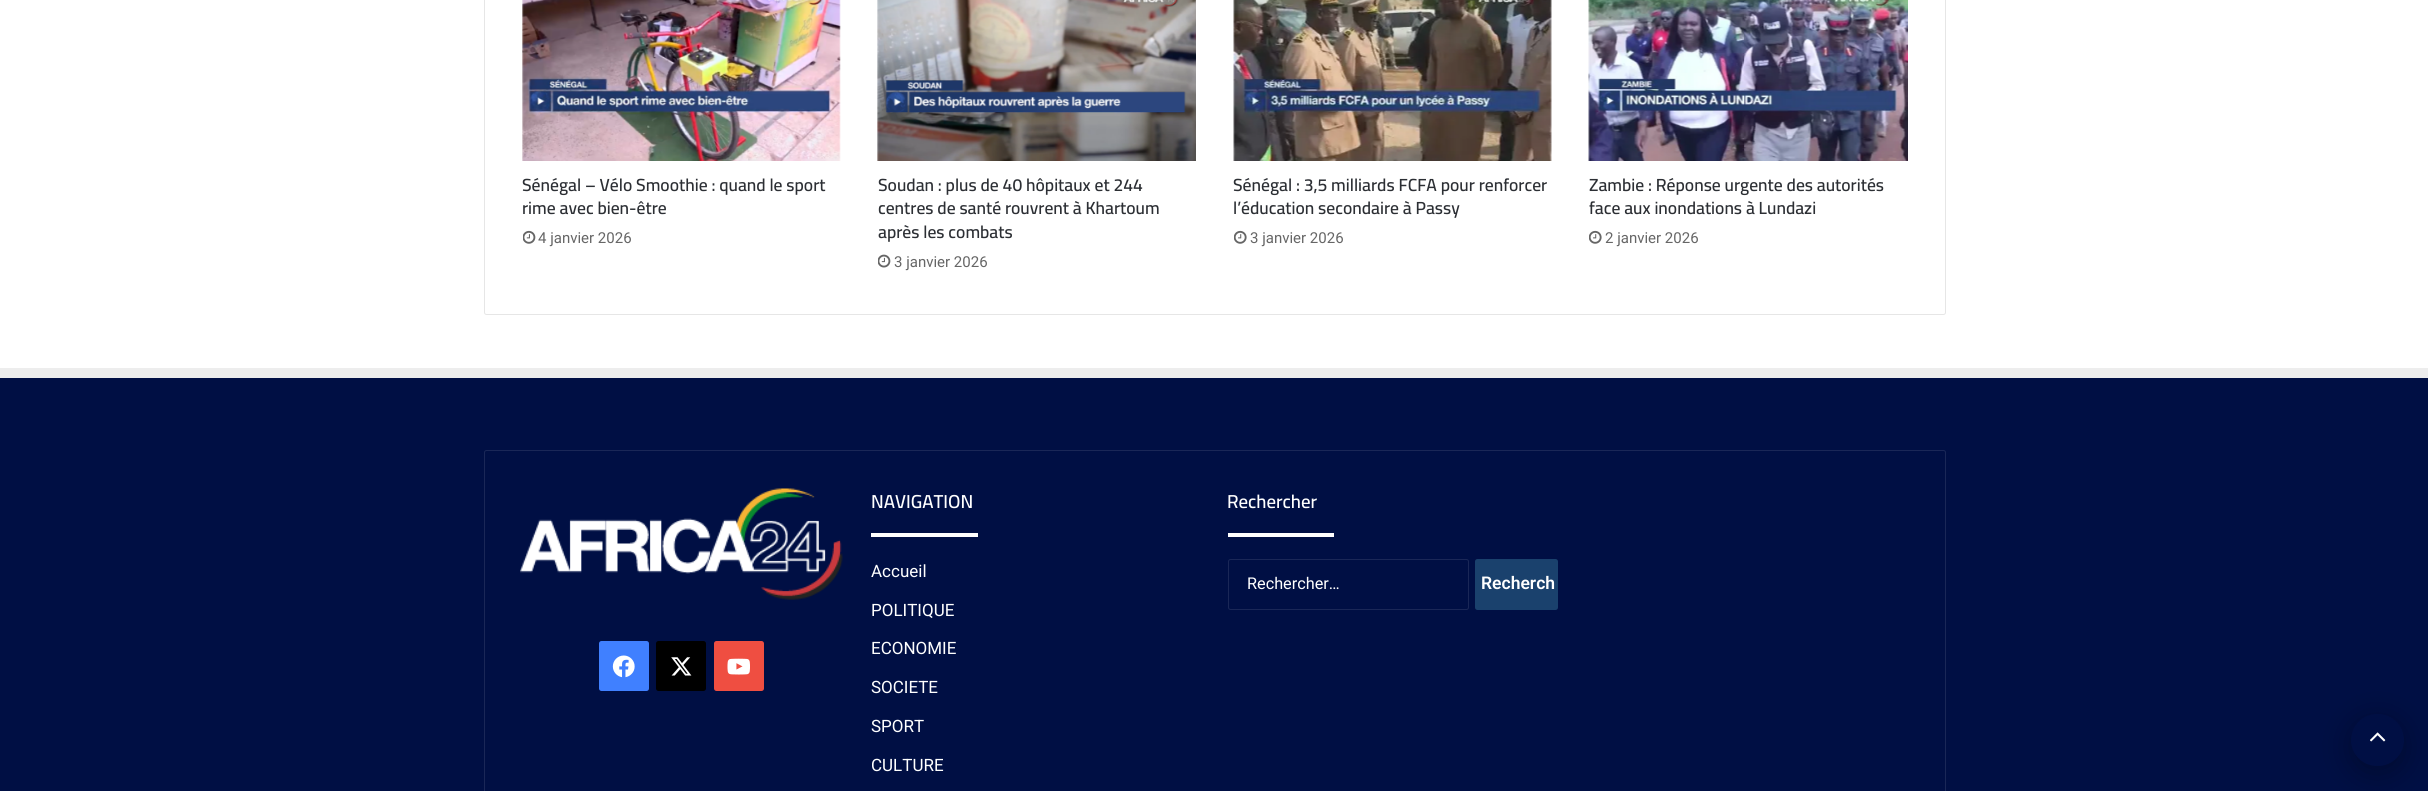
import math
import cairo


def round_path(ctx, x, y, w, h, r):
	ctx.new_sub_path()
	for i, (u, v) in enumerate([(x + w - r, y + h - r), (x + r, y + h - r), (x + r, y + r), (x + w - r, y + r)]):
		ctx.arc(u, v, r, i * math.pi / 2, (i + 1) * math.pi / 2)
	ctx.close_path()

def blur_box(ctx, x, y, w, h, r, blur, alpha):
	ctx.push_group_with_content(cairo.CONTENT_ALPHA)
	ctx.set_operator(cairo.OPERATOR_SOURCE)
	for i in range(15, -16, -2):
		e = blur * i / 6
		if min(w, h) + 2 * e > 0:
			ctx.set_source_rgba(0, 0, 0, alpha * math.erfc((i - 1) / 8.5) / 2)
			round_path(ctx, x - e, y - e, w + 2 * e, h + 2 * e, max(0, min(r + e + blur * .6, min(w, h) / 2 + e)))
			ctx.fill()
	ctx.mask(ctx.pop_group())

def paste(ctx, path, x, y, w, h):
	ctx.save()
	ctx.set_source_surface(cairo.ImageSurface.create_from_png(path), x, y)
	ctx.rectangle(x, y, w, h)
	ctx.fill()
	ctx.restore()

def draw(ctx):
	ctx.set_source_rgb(1, 1, 1)
	ctx.paint()
	round_path(ctx, 484.5, -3.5, 1461, 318, 2)
	ctx.set_source_rgb(0.902, 0.902, 0.902)
	ctx.set_line_width(1)
	ctx.stroke()
	paste(ctx, 'media/1.png', 522, 0, 319, 161)
	ctx.select_font_face('Cairo SemiBold')
	ctx.set_font_size(17.5)
	ctx.set_source_rgb(0.173, 0.184, 0.204)
	ctx.move_to(522, 191)
	ctx.show_text('Sénégal – Vélo Smoothie : quand le sport')
	ctx.move_to(522, 214)
	ctx.show_text('rime avec bien-être')
	paste(ctx, 'media/2.png', 523, 230, 13, 14)
	ctx.select_font_face('Roboto')
	ctx.set_font_size(15)
	ctx.set_source_rgb(0.4, 0.4, 0.4)
	ctx.move_to(538, 243)
	ctx.show_text('4 janvier 2026')
	paste(ctx, 'media/3.png', 877, 0, 319, 161)
	ctx.select_font_face('Cairo SemiBold')
	ctx.set_font_size(17.5)
	ctx.set_source_rgb(0.173, 0.184, 0.204)
	for x, y, s in [
		(878, 191, 'Soudan : plus de 40 hôpitaux et 244'),
		(878, 214, 'centres de santé rouvrent à Khartoum'),
		(878, 238, 'après les combats'),
	]:
		ctx.move_to(x, y)
		ctx.show_text(s)
	paste(ctx, 'media/4.png', 878, 254, 13, 14)
	ctx.select_font_face('Roboto')
	ctx.set_font_size(15)
	ctx.set_source_rgb(0.4, 0.4, 0.4)
	ctx.move_to(894, 267)
	ctx.show_text('3 janvier 2026')
	paste(ctx, 'media/5.png', 1233, 0, 319, 161)
	ctx.select_font_face('Cairo SemiBold')
	ctx.set_font_size(17.5)
	ctx.set_source_rgb(0.173, 0.184, 0.204)
	ctx.move_to(1233, 191)
	ctx.show_text('Sénégal : 3,5 milliards FCFA pour renforcer')
	ctx.move_to(1233, 214)
	ctx.show_text('l’éducation secondaire à Passy')
	paste(ctx, 'media/6.png', 1234, 230, 13, 14)
	ctx.select_font_face('Roboto')
	ctx.set_font_size(15)
	ctx.set_source_rgb(0.4, 0.4, 0.4)
	ctx.move_to(1250, 243)
	ctx.show_text('3 janvier 2026')
	paste(ctx, 'media/7.png', 1588, 0, 320, 161)
	ctx.select_font_face('Cairo SemiBold')
	ctx.set_font_size(17.5)
	ctx.set_source_rgb(0.173, 0.184, 0.204)
	ctx.move_to(1589, 191)
	ctx.show_text('Zambie : Réponse urgente des autorités')
	ctx.move_to(1589, 214)
	ctx.show_text('face aux inondations à Lundazi')
	paste(ctx, 'media/6.png', 1589, 230, 13, 14)
	ctx.select_font_face('Roboto')
	ctx.set_font_size(15)
	ctx.set_source_rgb(0.4, 0.4, 0.4)
	ctx.move_to(1605, 243)
	ctx.show_text('2 janvier 2026')
	ctx.set_source_rgb(0, 0.059, 0.267)
	ctx.rectangle(0, 378, 2428, 413)
	ctx.fill()
	ctx.set_source_rgb(0.929, 0.929, 0.929)
	ctx.new_path()
	ctx.move_to(0, 368)
	ctx.line_to(0, 378)
	ctx.line_to(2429, 378)
	ctx.line_to(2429, 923)
	ctx.line_to(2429, 368)
	ctx.close_path()
	ctx.fill()
	round_path(ctx, 484.5, 450.5, 1461, 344, 2)
	ctx.set_source_rgb(0.102, 0.153, 0.341)
	ctx.stroke()
	paste(ctx, 'media/8.png', 520, 488, 323, 112)
	ctx.set_source_rgb(0.251, 0.502, 1)
	round_path(ctx, 599, 641, 50, 50, 2.5)
	ctx.fill()
	paste(ctx, 'media/9.png', 612, 655, 23, 23)
	ctx.set_source_rgb(0, 0, 0)
	round_path(ctx, 656, 641, 50, 50, 2.5)
	ctx.fill()
	paste(ctx, 'media/10.png', 671, 657, 21, 19)
	ctx.set_source_rgb(0.937, 0.306, 0.255)
	round_path(ctx, 714, 641, 50, 50, 2.5)
	ctx.fill()
	paste(ctx, 'media/11.png', 727, 658, 23, 17)
	ctx.select_font_face('Cairo SemiBold')
	ctx.set_font_size(18.75)
	ctx.set_source_rgb(1, 1, 1)
	ctx.move_to(871, 508)
	ctx.show_text('NAVIGATION')
	ctx.rectangle(871, 533, 107, 4)
	ctx.fill()
	ctx.select_font_face('Roboto')
	ctx.set_font_size(17)
	for x, y, s in [
		(871, 577, 'Accueil'),
		(871, 616, 'POLITIQUE'),
		(871, 654, 'ECONOMIE'),
		(871, 693, 'SOCIETE'),
		(871, 732, 'SPORT'),
		(871, 771, 'CULTURE'),
	]:
		ctx.move_to(x, y)
		ctx.show_text(s)
	ctx.select_font_face('Cairo SemiBold')
	ctx.set_font_size(18.75)
	ctx.move_to(1227, 508)
	ctx.show_text('Rechercher')
	ctx.rectangle(1228, 533, 106, 4)
	ctx.fill()
	round_path(ctx, 1228.5, 559.5, 240, 50, 2)
	ctx.set_source_rgb(0.102, 0.153, 0.341)
	ctx.stroke()
	ctx.select_font_face('Roboto')
	ctx.set_font_size(16.25)
	ctx.set_source_rgb(1, 1, 1)
	ctx.move_to(1247, 589)
	ctx.show_text('Rechercher…')
	ctx.set_source_rgb(0.102, 0.255, 0.427)
	round_path(ctx, 1475, 559, 83, 51, 2.5)
	ctx.fill()
	ctx.select_font_face('Roboto SemiBold')
	ctx.set_font_size(17.5)
	ctx.set_source_rgb(1, 1, 1)
	ctx.move_to(1481, 589)
	ctx.show_text('Recherch')
	ctx.set_source_rgb(0, 0, 0)
	blur_box(ctx, 2351, 720, 53, 53, 26.5, 15.5, 0.3)
	ctx.set_source_rgb(0, 0.059, 0.267)
	round_path(ctx, 2351, 714, 53, 52, 26)
	ctx.fill()
	paste(ctx, 'media/12.png', 2370, 732, 16, 10)


surface = cairo.ImageSurface(cairo.FORMAT_RGB24, 2428, 791)
ctx = cairo.Context(surface)
options = cairo.FontOptions()
options.set_hint_metrics(cairo.HINT_METRICS_OFF)
options.set_hint_style(cairo.HINT_STYLE_NONE)
ctx.set_font_options(options)
ctx.set_miter_limit(4)
draw(ctx)
surface.write_to_png('image.png')
